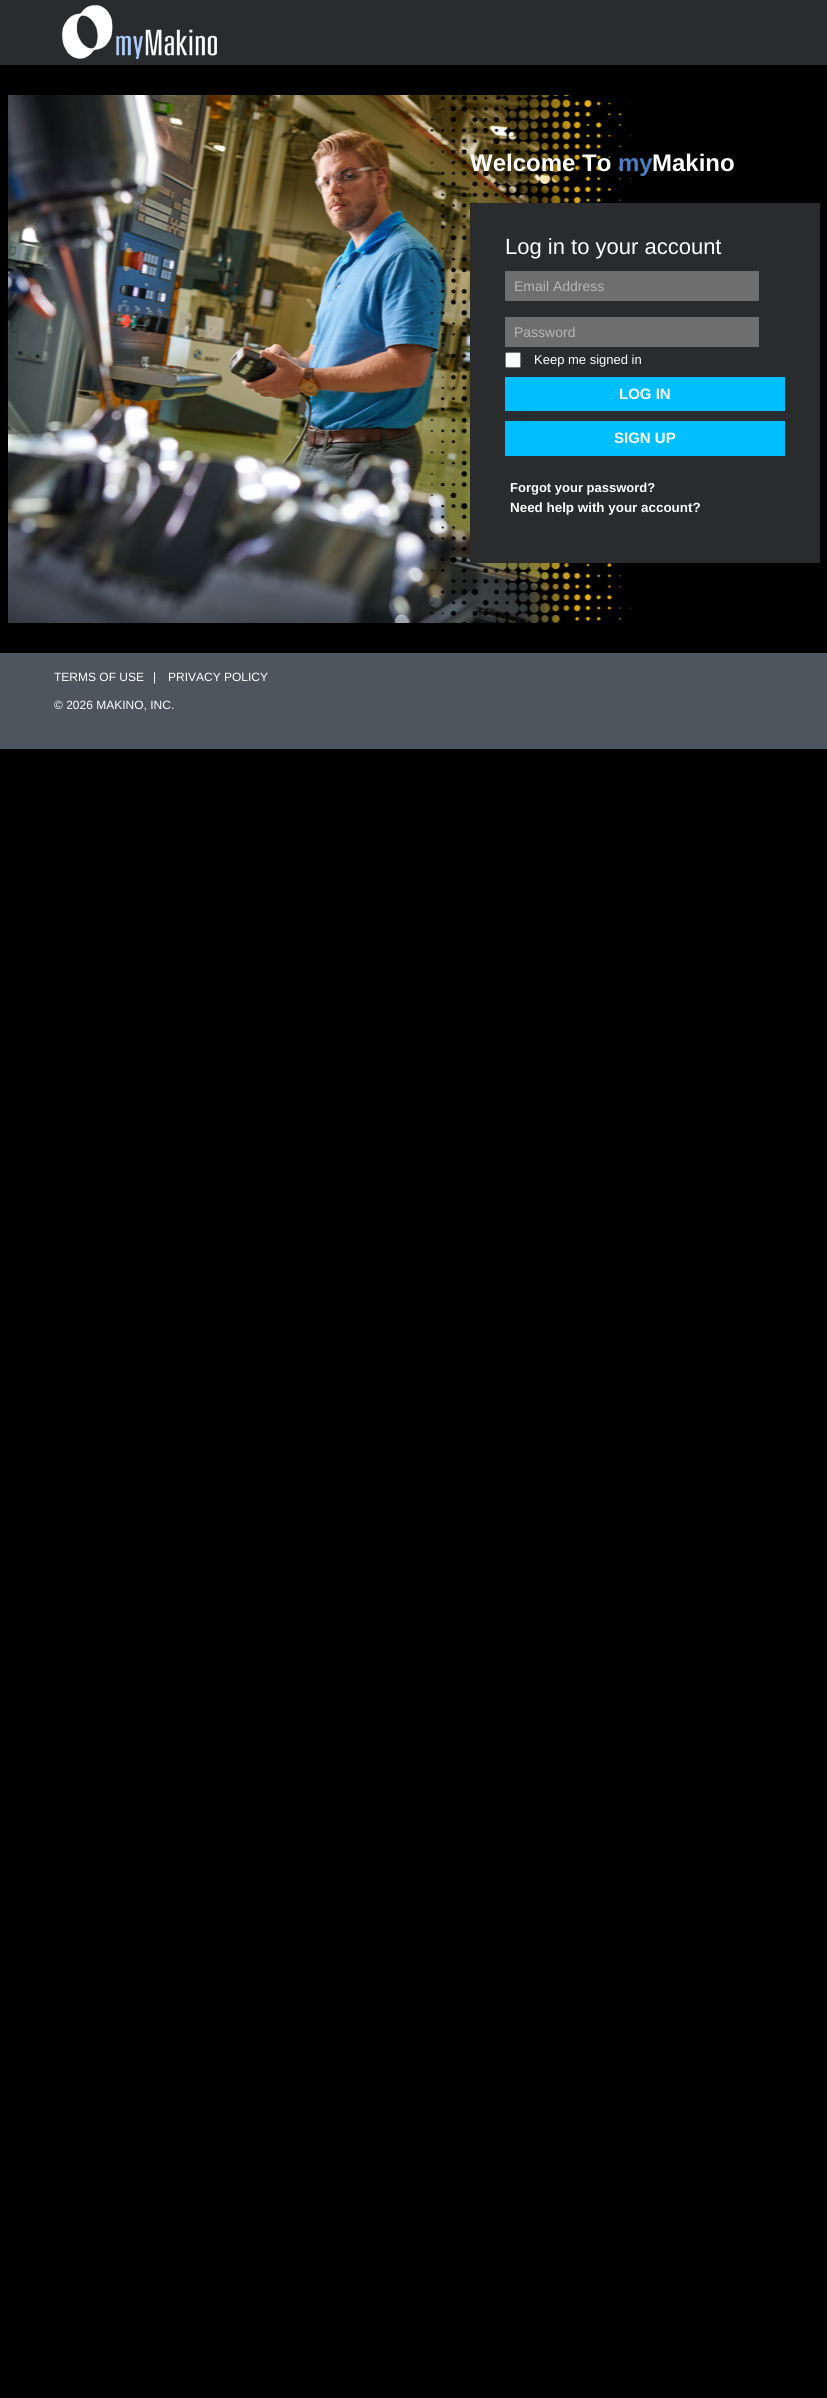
import math
import cairo


def round_path(ctx, x, y, w, h, r):
	ctx.new_sub_path()
	for i, (u, v) in enumerate([(x + w - r, y + h - r), (x + r, y + h - r), (x + r, y + r), (x + w - r, y + r)]):
		ctx.arc(u, v, r, i * math.pi / 2, (i + 1) * math.pi / 2)
	ctx.close_path()

def paste(ctx, path, x, y, w, h):
	ctx.save()
	ctx.set_source_surface(cairo.ImageSurface.create_from_png(path), x, y)
	ctx.rectangle(x, y, w, h)
	ctx.fill()
	ctx.restore()

def draw(ctx):
	ctx.set_source_rgb(0, 0, 0)
	ctx.paint()
	ctx.set_source_rgb(0.165, 0.169, 0.176)
	ctx.rectangle(0, 0, 827, 65)
	ctx.fill()
	paste(ctx, 'media/1.png', 62, 5, 155, 54)
	paste(ctx, 'media/2.png', 8, 95, 629, 528)
	ctx.select_font_face('Liberation Sans', cairo.FONT_SLANT_NORMAL, cairo.FONT_WEIGHT_BOLD)
	ctx.set_font_size(24)
	ctx.set_source_rgb(1, 1, 1)
	ctx.move_to(470, 171)
	ctx.show_text('Welcome To')
	ctx.set_source_rgb(0.294, 0.498, 0.745)
	ctx.move_to(618, 171)
	ctx.show_text('my')
	ctx.set_source_rgb(1, 1, 1)
	ctx.move_to(652, 171)
	ctx.show_text('Makino')
	ctx.set_source_rgb(0.165, 0.169, 0.176)
	ctx.rectangle(470, 203, 350, 360)
	ctx.fill()
	ctx.select_font_face('Liberation Sans')
	ctx.set_font_size(22)
	ctx.set_source_rgb(1, 1, 1)
	ctx.move_to(505, 254)
	ctx.show_text('Log in to your account')
	ctx.set_source_rgb(0.431, 0.431, 0.431)
	ctx.rectangle(505, 271, 254, 30)
	ctx.fill()
	ctx.set_font_size(14)
	ctx.set_source_rgb(0.71, 0.71, 0.71)
	ctx.move_to(514, 291)
	ctx.show_text('Email Address')
	ctx.set_source_rgb(0.431, 0.431, 0.431)
	ctx.rectangle(505, 317, 254, 30)
	ctx.fill()
	ctx.set_source_rgb(0.71, 0.71, 0.71)
	ctx.move_to(514, 337)
	ctx.show_text('Password')
	ctx.set_source_rgb(1, 1, 1)
	round_path(ctx, 505.5, 352.5, 15, 15, 1.5)
	ctx.fill_preserve()
	ctx.set_source_rgb(0.463, 0.463, 0.463)
	ctx.set_line_width(1)
	ctx.stroke()
	ctx.set_font_size(13)
	ctx.set_source_rgb(1, 1, 1)
	ctx.move_to(534, 364)
	ctx.show_text('Keep me signed in')
	ctx.set_source_rgb(0.004, 0.745, 1)
	ctx.rectangle(505, 377, 280, 34)
	ctx.fill()
	ctx.select_font_face('Liberation Sans', cairo.FONT_SLANT_NORMAL, cairo.FONT_WEIGHT_BOLD)
	ctx.set_font_size(15)
	ctx.set_source_rgb(1, 1, 1)
	ctx.move_to(619, 399)
	ctx.show_text('LOG IN')
	ctx.set_source_rgb(0.004, 0.745, 1)
	ctx.rectangle(505, 421, 280, 35)
	ctx.fill()
	ctx.set_source_rgb(1, 1, 1)
	ctx.move_to(614, 443)
	ctx.show_text('SIGN UP')
	ctx.set_font_size(13)
	ctx.move_to(510, 492)
	ctx.show_text('Forgot your password?')
	ctx.set_font_size(13.4)
	ctx.move_to(510, 512)
	ctx.show_text('Need help with your account?')
	ctx.set_source_rgb(0.302, 0.337, 0.373)
	ctx.rectangle(0, 653, 827, 96)
	ctx.fill()
	ctx.select_font_face('Liberation Sans')
	ctx.set_font_size(12)
	ctx.set_source_rgb(1, 1, 1)
	for x, y, s in [
		(54, 681, 'TERMS OF USE'),
		(153, 681, '|'),
		(168, 681, 'PRIVACY POLICY'),
		(54, 709, '© 2026 MAKINO, INC.'),
	]:
		ctx.move_to(x, y)
		ctx.show_text(s)


surface = cairo.ImageSurface(cairo.FORMAT_RGB24, 827, 2398)
ctx = cairo.Context(surface)
options = cairo.FontOptions()
options.set_hint_metrics(cairo.HINT_METRICS_OFF)
options.set_hint_style(cairo.HINT_STYLE_NONE)
ctx.set_font_options(options)
ctx.set_miter_limit(4)
draw(ctx)
surface.write_to_png('image.png')
